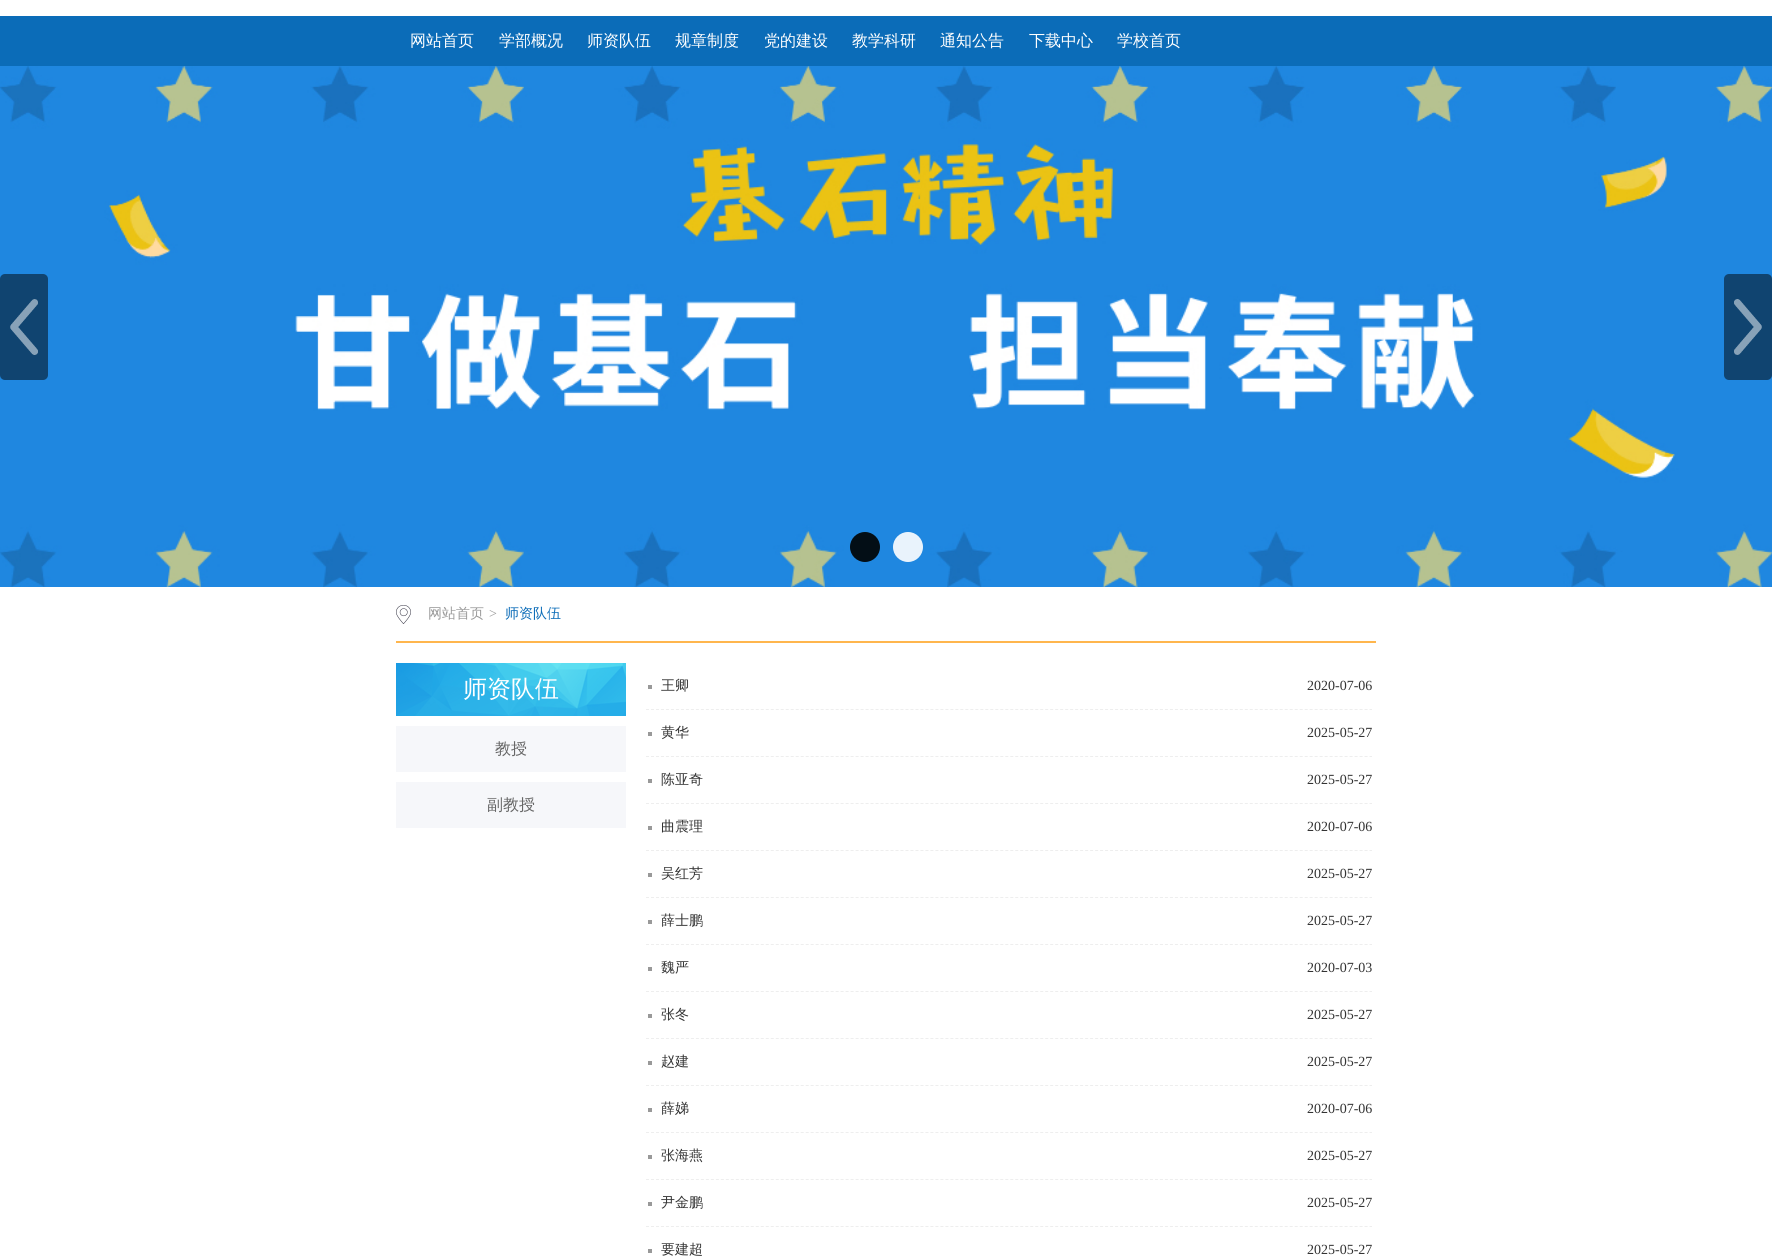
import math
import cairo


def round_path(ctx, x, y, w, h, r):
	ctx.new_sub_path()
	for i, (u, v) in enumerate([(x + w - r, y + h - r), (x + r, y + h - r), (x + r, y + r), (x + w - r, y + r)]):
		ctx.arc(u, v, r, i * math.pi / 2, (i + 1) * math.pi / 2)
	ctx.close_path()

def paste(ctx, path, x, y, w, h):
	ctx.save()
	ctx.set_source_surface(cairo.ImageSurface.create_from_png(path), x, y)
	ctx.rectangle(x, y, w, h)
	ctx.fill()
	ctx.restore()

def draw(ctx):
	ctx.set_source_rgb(1, 1, 1)
	ctx.paint()
	ctx.set_source_rgb(0.043, 0.424, 0.722)
	ctx.rectangle(0, 16, 1772, 50)
	ctx.fill()
	ctx.select_font_face('WenQuanYi Zen Hei Medium')
	ctx.set_font_size(16)
	ctx.set_source_rgb(1, 1, 1)
	for x, y, s in [
		(410, 46, '网站首页'),
		(499, 46, '学部概况'),
		(587, 46, '师资队伍'),
		(675, 46, '规章制度'),
		(764, 46, '党的建设'),
		(852, 46, '教学科研'),
		(940, 46, '通知公告'),
		(1029, 46, '下载中心'),
		(1117, 46, '学校首页'),
	]:
		ctx.move_to(x, y)
		ctx.show_text(s)
	paste(ctx, 'media/1.png', 0, 66, 1772, 521)
	ctx.set_source_rgb(0.063, 0.267, 0.439)
	round_path(ctx, 0, 274, 48, 106, 5)
	ctx.fill()
	paste(ctx, 'media/2.png', 10, 299, 28, 56)
	round_path(ctx, 1724, 274, 48, 106, 5)
	ctx.fill()
	paste(ctx, 'media/3.png', 1734, 299, 28, 56)
	ctx.set_source_rgb(0.012, 0.055, 0.086)
	ctx.arc(865, 547, 15, 0, 2 * math.pi)
	ctx.fill()
	ctx.set_source_rgb(0.914, 0.953, 0.988)
	ctx.arc(908, 547, 15, 0, 2 * math.pi)
	ctx.fill()
	ctx.set_source_rgb(1, 0.714, 0.302)
	ctx.rectangle(396, 641, 980, 2)
	ctx.fill()
	paste(ctx, 'media/4.png', 396, 605, 15, 19)
	ctx.set_font_size(14)
	ctx.set_source_rgb(0.6, 0.6, 0.6)
	ctx.move_to(428, 618)
	ctx.show_text('网站首页')
	ctx.select_font_face('Liberation Serif')
	ctx.move_to(489, 618)
	ctx.show_text('>')
	ctx.select_font_face('WenQuanYi Zen Hei Medium')
	ctx.set_source_rgb(0.043, 0.424, 0.722)
	ctx.move_to(505, 618)
	ctx.show_text('师资队伍')
	paste(ctx, 'media/5.png', 396, 663, 230, 53)
	ctx.set_font_size(24)
	ctx.set_source_rgb(1, 1, 1)
	ctx.move_to(463, 697)
	ctx.show_text('师资队伍')
	ctx.set_source_rgb(0.961, 0.965, 0.98)
	ctx.rectangle(396, 726, 230, 46)
	ctx.fill()
	ctx.set_font_size(16)
	ctx.set_source_rgb(0.4, 0.4, 0.4)
	ctx.move_to(495, 754)
	ctx.show_text('教授')
	ctx.set_source_rgb(0.961, 0.965, 0.98)
	ctx.rectangle(396, 782, 230, 46)
	ctx.fill()
	ctx.set_source_rgb(0.4, 0.4, 0.4)
	ctx.move_to(487, 810)
	ctx.show_text('副教授')
	ctx.set_source_rgb(0.6, 0.6, 0.6)
	ctx.rectangle(648, 685, 4, 4)
	ctx.fill()
	ctx.new_path()
	ctx.move_to(646, 709.5)
	ctx.line_to(1372, 709.5)
	ctx.set_source_rgb(0.933, 0.933, 0.933)
	ctx.set_line_width(1)
	ctx.set_dash([3, 1.99])
	ctx.stroke()
	ctx.set_font_size(14)
	ctx.set_source_rgb(0.2, 0.2, 0.2)
	ctx.move_to(661, 690)
	ctx.show_text('王卿')
	ctx.select_font_face('Liberation Serif')
	ctx.move_to(1307, 690)
	ctx.show_text('2020-07-06')
	ctx.set_source_rgb(0.6, 0.6, 0.6)
	ctx.rectangle(648, 732, 4, 4)
	ctx.fill()
	ctx.new_path()
	ctx.move_to(646, 756.5)
	ctx.line_to(1372, 756.5)
	ctx.set_source_rgb(0.933, 0.933, 0.933)
	ctx.stroke()
	ctx.select_font_face('WenQuanYi Zen Hei Medium')
	ctx.set_source_rgb(0.2, 0.2, 0.2)
	ctx.move_to(661, 737)
	ctx.show_text('黄华')
	ctx.select_font_face('Liberation Serif')
	ctx.move_to(1307, 737)
	ctx.show_text('2025-05-27')
	ctx.set_source_rgb(0.6, 0.6, 0.6)
	ctx.rectangle(648, 779, 4, 4)
	ctx.fill()
	ctx.new_path()
	ctx.move_to(646, 803.5)
	ctx.line_to(1372, 803.5)
	ctx.set_source_rgb(0.933, 0.933, 0.933)
	ctx.stroke()
	ctx.select_font_face('WenQuanYi Zen Hei Medium')
	ctx.set_source_rgb(0.2, 0.2, 0.2)
	ctx.move_to(661, 784)
	ctx.show_text('陈亚奇')
	ctx.select_font_face('Liberation Serif')
	ctx.move_to(1307, 784)
	ctx.show_text('2025-05-27')
	ctx.set_source_rgb(0.6, 0.6, 0.6)
	ctx.rectangle(648, 826, 4, 4)
	ctx.fill()
	ctx.new_path()
	ctx.move_to(646, 850.5)
	ctx.line_to(1372, 850.5)
	ctx.set_source_rgb(0.933, 0.933, 0.933)
	ctx.stroke()
	ctx.select_font_face('WenQuanYi Zen Hei Medium')
	ctx.set_source_rgb(0.2, 0.2, 0.2)
	ctx.move_to(661, 831)
	ctx.show_text('曲震理')
	ctx.select_font_face('Liberation Serif')
	ctx.move_to(1307, 831)
	ctx.show_text('2020-07-06')
	ctx.set_source_rgb(0.6, 0.6, 0.6)
	ctx.rectangle(648, 873, 4, 4)
	ctx.fill()
	ctx.new_path()
	ctx.move_to(646, 897.5)
	ctx.line_to(1372, 897.5)
	ctx.set_source_rgb(0.933, 0.933, 0.933)
	ctx.stroke()
	ctx.select_font_face('WenQuanYi Zen Hei Medium')
	ctx.set_source_rgb(0.2, 0.2, 0.2)
	ctx.move_to(661, 878)
	ctx.show_text('吴红芳')
	ctx.select_font_face('Liberation Serif')
	ctx.move_to(1307, 878)
	ctx.show_text('2025-05-27')
	ctx.set_source_rgb(0.6, 0.6, 0.6)
	ctx.rectangle(648, 920, 4, 4)
	ctx.fill()
	ctx.new_path()
	ctx.move_to(646, 944.5)
	ctx.line_to(1372, 944.5)
	ctx.set_source_rgb(0.933, 0.933, 0.933)
	ctx.stroke()
	ctx.select_font_face('WenQuanYi Zen Hei Medium')
	ctx.set_source_rgb(0.2, 0.2, 0.2)
	ctx.move_to(661, 925)
	ctx.show_text('薛士鹏')
	ctx.select_font_face('Liberation Serif')
	ctx.move_to(1307, 925)
	ctx.show_text('2025-05-27')
	ctx.set_source_rgb(0.6, 0.6, 0.6)
	ctx.rectangle(648, 967, 4, 4)
	ctx.fill()
	ctx.new_path()
	ctx.move_to(646, 991.5)
	ctx.line_to(1372, 991.5)
	ctx.set_source_rgb(0.933, 0.933, 0.933)
	ctx.stroke()
	ctx.select_font_face('WenQuanYi Zen Hei Medium')
	ctx.set_source_rgb(0.2, 0.2, 0.2)
	ctx.move_to(661, 972)
	ctx.show_text('魏严')
	ctx.select_font_face('Liberation Serif')
	ctx.move_to(1307, 972)
	ctx.show_text('2020-07-03')
	ctx.set_source_rgb(0.6, 0.6, 0.6)
	ctx.rectangle(648, 1014, 4, 4)
	ctx.fill()
	ctx.new_path()
	ctx.move_to(646, 1038.5)
	ctx.line_to(1372, 1038.5)
	ctx.set_source_rgb(0.933, 0.933, 0.933)
	ctx.stroke()
	ctx.select_font_face('WenQuanYi Zen Hei Medium')
	ctx.set_source_rgb(0.2, 0.2, 0.2)
	ctx.move_to(661, 1019)
	ctx.show_text('张冬')
	ctx.select_font_face('Liberation Serif')
	ctx.move_to(1307, 1019)
	ctx.show_text('2025-05-27')
	ctx.set_source_rgb(0.6, 0.6, 0.6)
	ctx.rectangle(648, 1061, 4, 4)
	ctx.fill()
	ctx.new_path()
	ctx.move_to(646, 1085.5)
	ctx.line_to(1372, 1085.5)
	ctx.set_source_rgb(0.933, 0.933, 0.933)
	ctx.stroke()
	ctx.select_font_face('WenQuanYi Zen Hei Medium')
	ctx.set_source_rgb(0.2, 0.2, 0.2)
	ctx.move_to(661, 1066)
	ctx.show_text('赵建')
	ctx.select_font_face('Liberation Serif')
	ctx.move_to(1307, 1066)
	ctx.show_text('2025-05-27')
	ctx.set_source_rgb(0.6, 0.6, 0.6)
	ctx.rectangle(648, 1108, 4, 4)
	ctx.fill()
	ctx.new_path()
	ctx.move_to(646, 1132.5)
	ctx.line_to(1372, 1132.5)
	ctx.set_source_rgb(0.933, 0.933, 0.933)
	ctx.stroke()
	ctx.select_font_face('WenQuanYi Zen Hei Medium')
	ctx.set_source_rgb(0.2, 0.2, 0.2)
	ctx.move_to(661, 1113)
	ctx.show_text('薛娣')
	ctx.select_font_face('Liberation Serif')
	ctx.move_to(1307, 1113)
	ctx.show_text('2020-07-06')
	ctx.set_source_rgb(0.6, 0.6, 0.6)
	ctx.rectangle(648, 1155, 4, 4)
	ctx.fill()
	ctx.new_path()
	ctx.move_to(646, 1179.5)
	ctx.line_to(1372, 1179.5)
	ctx.set_source_rgb(0.933, 0.933, 0.933)
	ctx.stroke()
	ctx.select_font_face('WenQuanYi Zen Hei Medium')
	ctx.set_source_rgb(0.2, 0.2, 0.2)
	ctx.move_to(661, 1160)
	ctx.show_text('张海燕')
	ctx.select_font_face('Liberation Serif')
	ctx.move_to(1307, 1160)
	ctx.show_text('2025-05-27')
	ctx.set_source_rgb(0.6, 0.6, 0.6)
	ctx.rectangle(648, 1202, 4, 4)
	ctx.fill()
	ctx.new_path()
	ctx.move_to(646, 1226.5)
	ctx.line_to(1372, 1226.5)
	ctx.set_source_rgb(0.933, 0.933, 0.933)
	ctx.stroke()
	ctx.select_font_face('WenQuanYi Zen Hei Medium')
	ctx.set_source_rgb(0.2, 0.2, 0.2)
	ctx.move_to(661, 1207)
	ctx.show_text('尹金鹏')
	ctx.select_font_face('Liberation Serif')
	ctx.move_to(1307, 1207)
	ctx.show_text('2025-05-27')
	ctx.set_source_rgb(0.6, 0.6, 0.6)
	ctx.rectangle(648, 1249, 4, 4)
	ctx.fill()
	ctx.select_font_face('WenQuanYi Zen Hei Medium')
	ctx.set_source_rgb(0.2, 0.2, 0.2)
	ctx.move_to(661, 1254)
	ctx.show_text('要建超')
	ctx.select_font_face('Liberation Serif')
	ctx.move_to(1307, 1254)
	ctx.show_text('2025-05-27')


surface = cairo.ImageSurface(cairo.FORMAT_RGB24, 1772, 1258)
ctx = cairo.Context(surface)
options = cairo.FontOptions()
options.set_hint_metrics(cairo.HINT_METRICS_OFF)
options.set_hint_style(cairo.HINT_STYLE_NONE)
ctx.set_font_options(options)
ctx.set_miter_limit(4)
draw(ctx)
surface.write_to_png('image.png')
